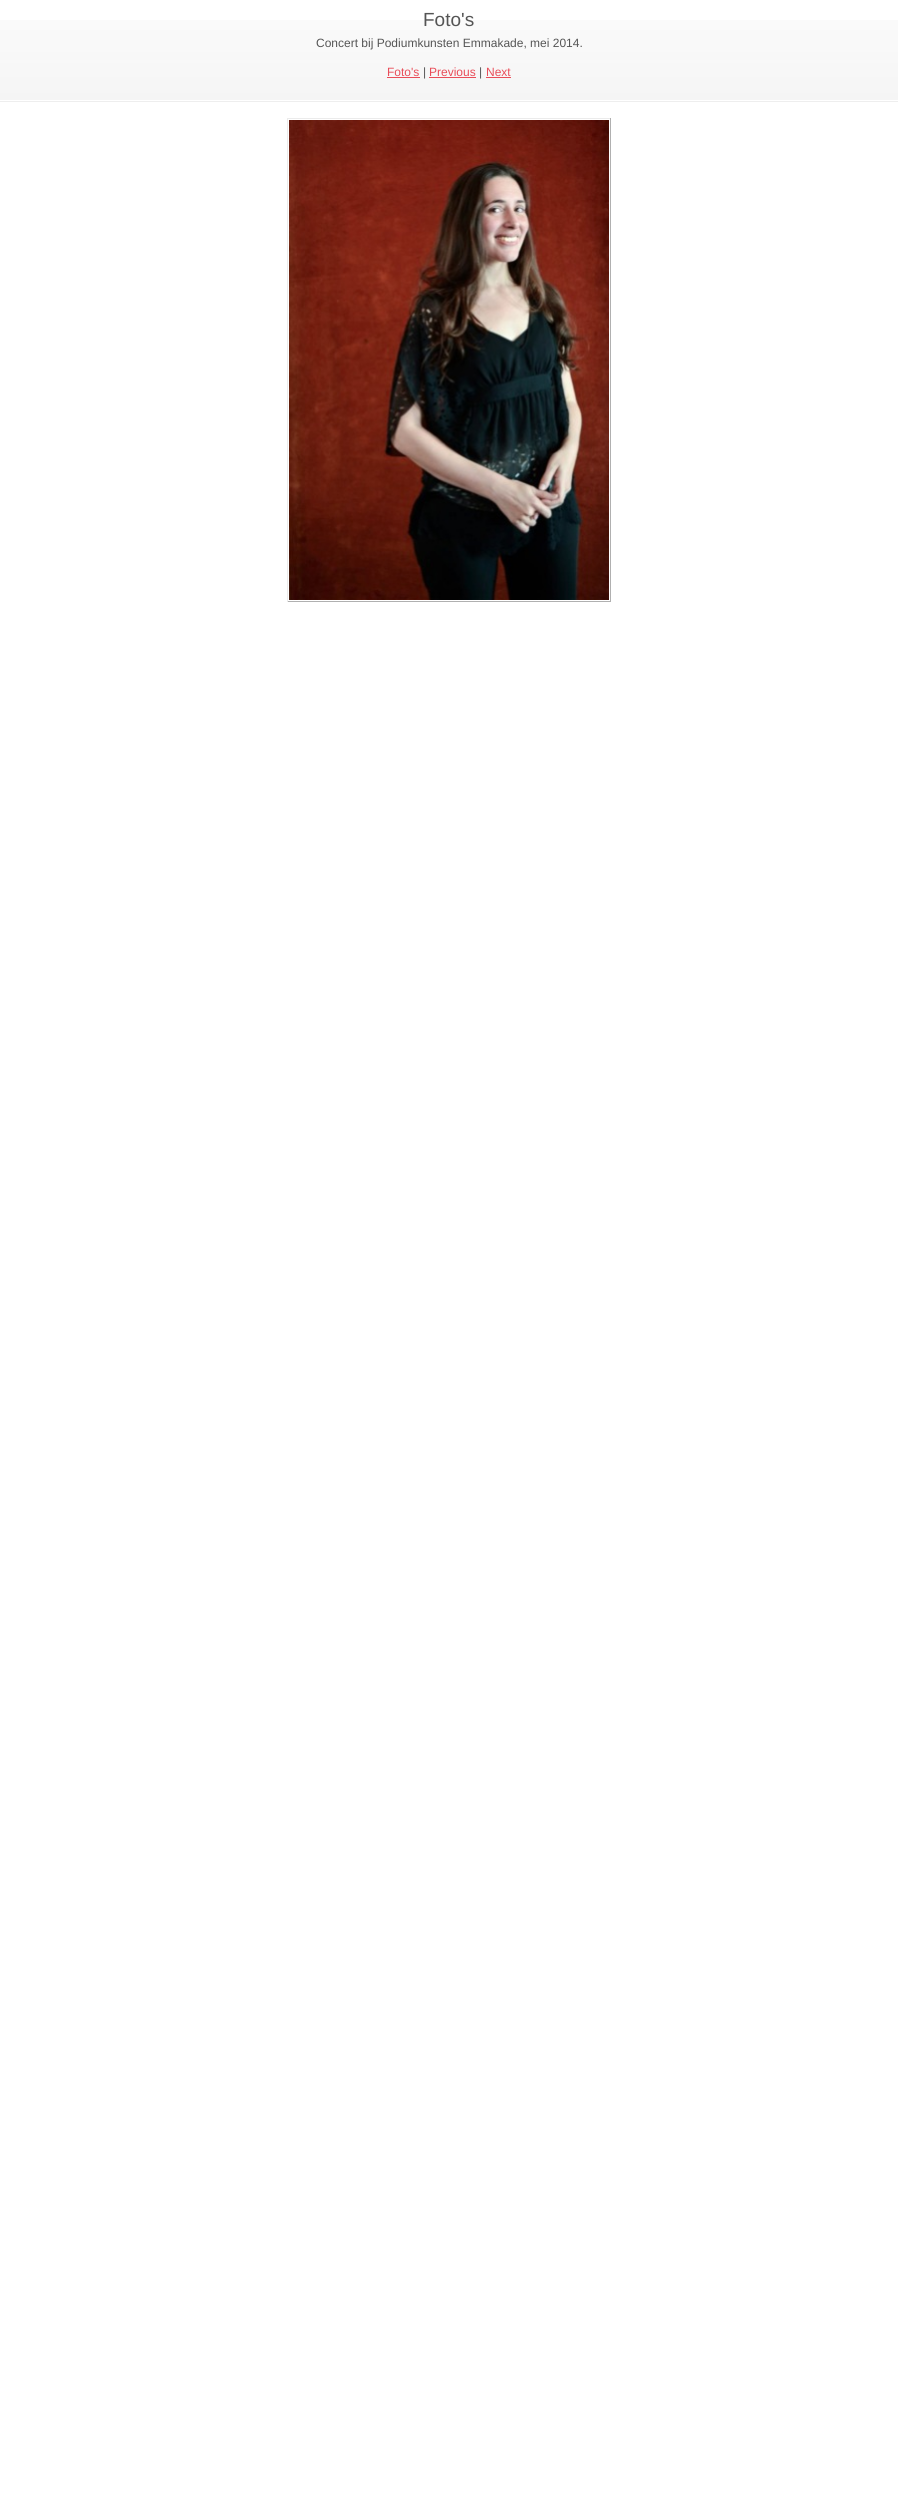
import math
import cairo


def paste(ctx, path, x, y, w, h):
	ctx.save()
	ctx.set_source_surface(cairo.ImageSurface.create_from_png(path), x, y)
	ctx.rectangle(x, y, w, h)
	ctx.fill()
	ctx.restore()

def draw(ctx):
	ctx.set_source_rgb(1, 1, 1)
	ctx.paint()
	paste(ctx, 'media/1.png', 0, 20, 898, 82)
	ctx.select_font_face('Liberation Sans')
	ctx.set_font_size(19)
	ctx.set_source_rgb(0.333, 0.333, 0.333)
	ctx.move_to(423, 26)
	ctx.show_text('Foto\'s')
	ctx.set_font_size(12)
	ctx.move_to(316, 47)
	ctx.show_text('Concert bij Podiumkunsten Emmakade, mei 2014.')
	ctx.set_source_rgb(0.914, 0.302, 0.349)
	ctx.move_to(387, 76)
	ctx.show_text('Foto\'s')
	ctx.rectangle(387, 77, 33, 1)
	ctx.fill()
	ctx.set_source_rgb(0.333, 0.333, 0.333)
	ctx.move_to(423, 76)
	ctx.show_text('|')
	ctx.set_source_rgb(0.914, 0.302, 0.349)
	ctx.move_to(429, 76)
	ctx.show_text('Previous')
	ctx.rectangle(429, 77, 47, 1)
	ctx.fill()
	ctx.set_source_rgb(0.333, 0.333, 0.333)
	ctx.move_to(479, 76)
	ctx.show_text('|')
	ctx.set_source_rgb(0.914, 0.302, 0.349)
	ctx.move_to(486, 76)
	ctx.show_text('Next')
	ctx.rectangle(486, 77, 25, 1)
	ctx.fill()
	ctx.set_source_rgb(0.918, 0.918, 0.918)
	ctx.rectangle(287, 118, 324, 1)
	ctx.fill()
	ctx.set_source_rgb(0.69, 0.69, 0.69)
	ctx.rectangle(610, 118, 1, 484)
	ctx.rectangle(287, 601, 324, 1)
	ctx.fill()
	ctx.set_source_rgb(0.918, 0.918, 0.918)
	ctx.rectangle(287, 118, 1, 484)
	ctx.fill()
	paste(ctx, 'media/2.png', 289, 120, 320, 480)


surface = cairo.ImageSurface(cairo.FORMAT_RGB24, 898, 2518)
ctx = cairo.Context(surface)
options = cairo.FontOptions()
options.set_hint_metrics(cairo.HINT_METRICS_OFF)
options.set_hint_style(cairo.HINT_STYLE_NONE)
ctx.set_font_options(options)
ctx.set_miter_limit(4)
draw(ctx)
surface.write_to_png('image.png')
